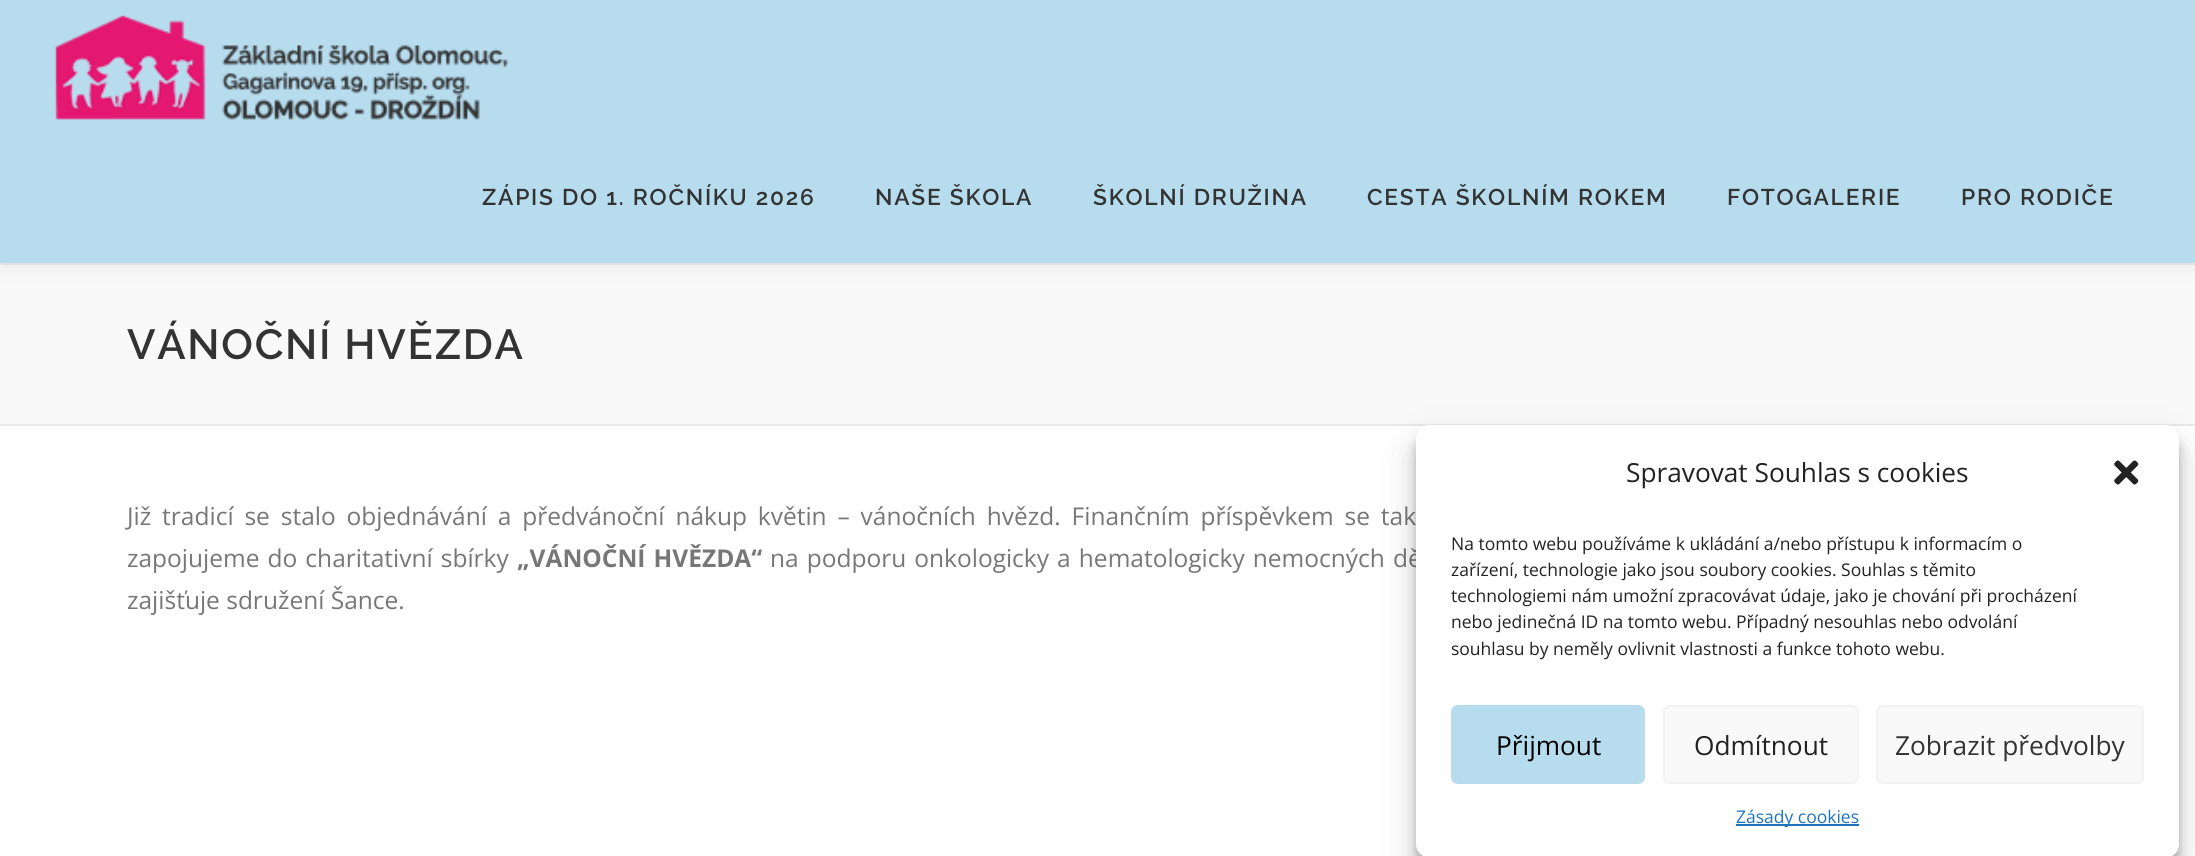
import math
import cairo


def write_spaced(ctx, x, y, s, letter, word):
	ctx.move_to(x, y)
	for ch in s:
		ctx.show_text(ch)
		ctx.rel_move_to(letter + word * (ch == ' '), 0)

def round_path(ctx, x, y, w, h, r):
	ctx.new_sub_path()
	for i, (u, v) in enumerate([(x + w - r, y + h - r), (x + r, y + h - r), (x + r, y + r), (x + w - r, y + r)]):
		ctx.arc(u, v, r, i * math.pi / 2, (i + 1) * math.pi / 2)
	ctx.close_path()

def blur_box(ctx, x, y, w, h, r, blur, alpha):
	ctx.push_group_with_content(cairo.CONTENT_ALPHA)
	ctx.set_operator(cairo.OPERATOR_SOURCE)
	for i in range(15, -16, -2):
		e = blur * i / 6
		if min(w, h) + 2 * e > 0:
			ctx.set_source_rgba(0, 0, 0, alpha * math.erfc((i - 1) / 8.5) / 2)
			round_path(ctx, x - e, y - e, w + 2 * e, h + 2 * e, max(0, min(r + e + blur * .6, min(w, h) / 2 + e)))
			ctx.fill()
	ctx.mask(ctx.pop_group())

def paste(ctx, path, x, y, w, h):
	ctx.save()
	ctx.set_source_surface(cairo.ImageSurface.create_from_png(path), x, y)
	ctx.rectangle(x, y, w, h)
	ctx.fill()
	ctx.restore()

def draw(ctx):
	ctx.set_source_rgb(1, 1, 1)
	ctx.paint()
	ctx.set_source_rgb(0.973, 0.976, 0.976)
	ctx.rectangle(0, 265, 2195, 159)
	ctx.fill()
	ctx.set_source_rgb(0.914, 0.914, 0.914)
	ctx.rectangle(0, 263, 2195, 2)
	ctx.fill()
	ctx.set_source_rgb(0.196, 0.196, 0.196)
	blur_box(ctx, 0, 9, 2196, 262, 0, 9, 0.06)
	ctx.set_source_rgb(0.714, 0.863, 0.933)
	ctx.rectangle(0, 0, 2195, 263)
	ctx.fill()
	paste(ctx, 'media/1.png', 55, 15, 453, 105)
	ctx.select_font_face('Raleway SemiBold')
	ctx.set_font_size(22.75)
	ctx.set_source_rgb(0.2, 0.2, 0.2)
	for x, y, s in [
		(482, 205, 'ZÁPIS DO 1. ROČNÍKU 2026'),
		(875, 205, 'NAŠE ŠKOLA'),
		(1093, 205, 'ŠKOLNÍ DRUŽINA'),
		(1367, 205, 'CESTA ŠKOLNÍM ROKEM'),
		(1727, 205, 'FOTOGALERIE'),
		(1961, 205, 'PRO RODIČE'),
	]:
		write_spaced(ctx, x, y, s, 1.75, 0)
	ctx.set_source_rgb(0.914, 0.914, 0.914)
	ctx.rectangle(0, 424, 2195, 2)
	ctx.fill()
	ctx.set_font_size(42)
	ctx.set_source_rgb(0.2, 0.2, 0.2)
	write_spaced(ctx, 127, 359, 'VÁNOČNÍ HVĚZDA', 1.75, 0)
	ctx.select_font_face('Open Sans')
	ctx.set_font_size(24.5)
	ctx.set_source_rgb(0.467, 0.467, 0.467)
	write_spaced(ctx, 127, 525, 'Již tradicí se stalo objednávání a předvánoční nákup květin – vánočních hvězd. Finančním příspěvkem se tak', 0, 4.5)
	write_spaced(ctx, 127, 567, 'zapojujeme do charitativní sbírky', 0, 1.75)
	ctx.select_font_face('Open Sans', cairo.FONT_SLANT_NORMAL, cairo.FONT_WEIGHT_BOLD)
	write_spaced(ctx, 517, 567, '„VÁNOČNÍ HVĚZDA“', 0, 1.75)
	ctx.select_font_face('Open Sans')
	write_spaced(ctx, 770, 567, 'na podporu onkologicky a hematologicky nemocných dě', 0, 1.75)
	ctx.move_to(127, 609)
	ctx.show_text('zajišťuje sdružení Šance.')
	ctx.set_source_rgb(0, 0, 0)
	blur_box(ctx, 1416, 436, 763, 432, 14, 5, 0.23)
	blur_box(ctx, 1416, 443, 763, 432, 14, 17.5, 0.19)
	ctx.set_source_rgb(1, 1, 1)
	round_path(ctx, 1416, 425, 763, 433, 14)
	ctx.fill()
	ctx.set_font_size(26.25)
	ctx.set_source_rgb(0.133, 0.133, 0.133)
	ctx.move_to(1626, 482)
	ctx.show_text('Spravovat Souhlas s cookies')
	paste(ctx, 'media/2.png', 2114, 460, 25, 25)
	ctx.set_font_size(17.5)
	for x, y, s in [
		(1451, 550, 'Na tomto webu používáme k ukládání a/nebo přístupu k informacím o'),
		(1451, 576, 'zařízení, technologie jako jsou soubory cookies. Souhlas s těmito'),
		(1451, 602, 'technologiemi nám umožní zpracovávat údaje, jako je chování při procházení'),
		(1451, 628, 'nebo jedinečná ID na tomto webu. Případný nesouhlas nebo odvolání'),
		(1451, 655, 'souhlasu by neměly ovlivnit vlastnosti a funkce tohoto webu.'),
	]:
		ctx.move_to(x, y)
		ctx.show_text(s)
	ctx.set_source_rgb(0.714, 0.863, 0.933)
	round_path(ctx, 1452, 706, 192, 77, 6)
	ctx.fill_preserve()
	ctx.stroke()
	ctx.set_font_size(26.25)
	ctx.set_source_rgb(0, 0, 0)
	ctx.move_to(1496, 755)
	ctx.show_text('Přijmout')
	ctx.set_source_rgb(0.976, 0.976, 0.976)
	round_path(ctx, 1664, 706, 194, 77, 6)
	ctx.fill_preserve()
	ctx.set_source_rgb(0.949, 0.949, 0.949)
	ctx.stroke()
	ctx.set_source_rgb(0.133, 0.133, 0.133)
	ctx.move_to(1694, 755)
	ctx.show_text('Odmítnout')
	ctx.set_source_rgb(0.976, 0.976, 0.976)
	round_path(ctx, 1877, 706, 266, 77, 6)
	ctx.fill_preserve()
	ctx.set_source_rgb(0.949, 0.949, 0.949)
	ctx.stroke()
	ctx.set_source_rgb(0.2, 0.2, 0.2)
	ctx.move_to(1895, 755)
	ctx.show_text('Zobrazit předvolby')
	ctx.set_source_rgb(0.118, 0.451, 0.745)
	ctx.rectangle(1736, 824, 123, 2)
	ctx.fill()
	ctx.set_font_size(17.5)
	ctx.move_to(1736, 823)
	ctx.show_text('Zásady cookies')


surface = cairo.ImageSurface(cairo.FORMAT_RGB24, 2195, 856)
ctx = cairo.Context(surface)
options = cairo.FontOptions()
options.set_hint_metrics(cairo.HINT_METRICS_OFF)
options.set_hint_style(cairo.HINT_STYLE_NONE)
ctx.set_font_options(options)
ctx.set_miter_limit(4)
draw(ctx)
surface.write_to_png('image.png')
